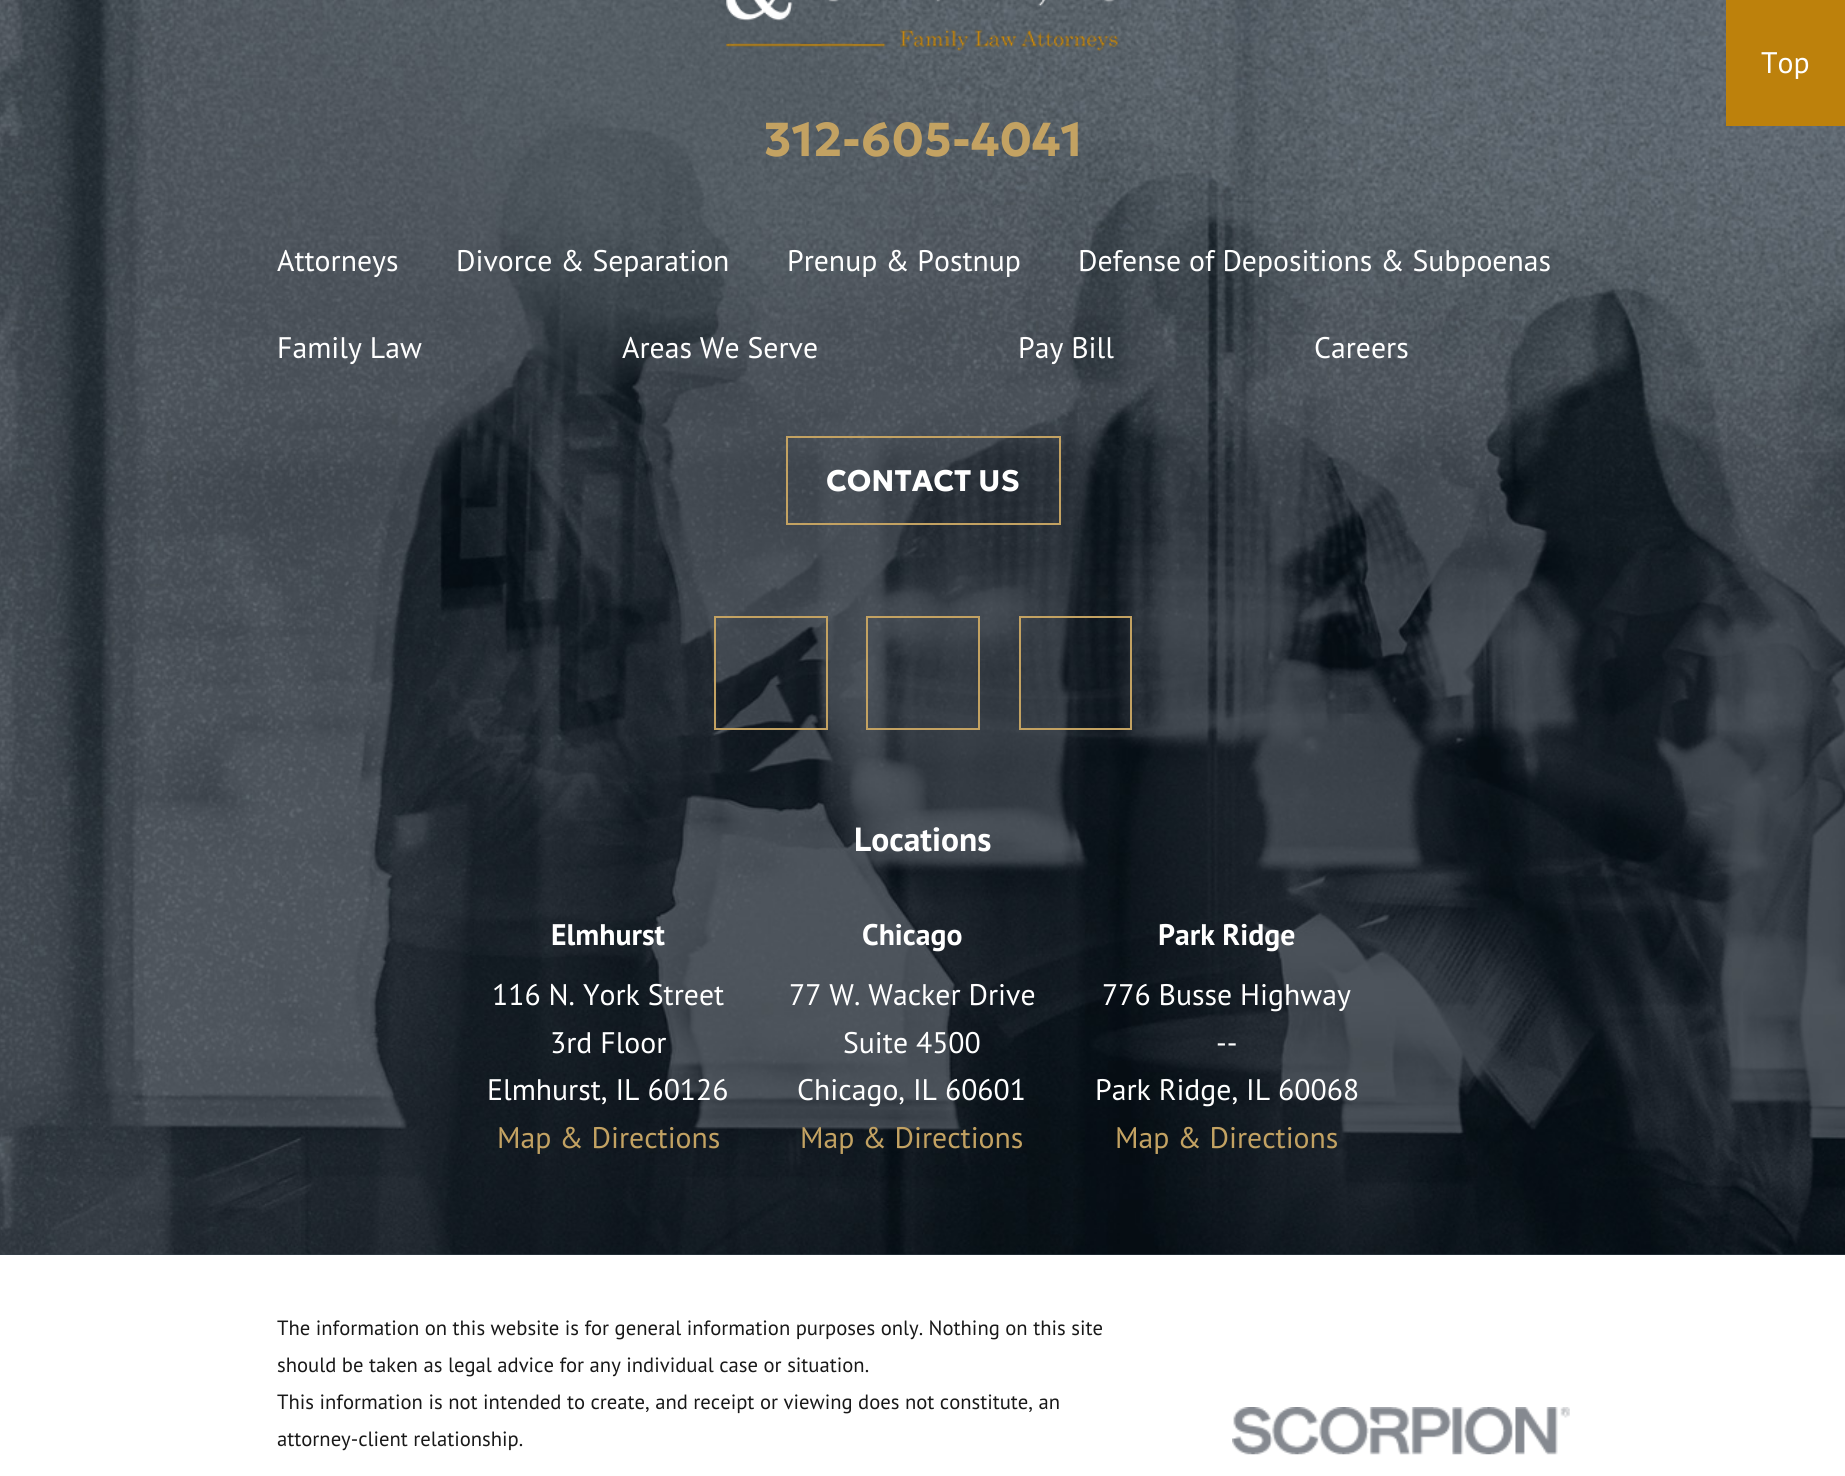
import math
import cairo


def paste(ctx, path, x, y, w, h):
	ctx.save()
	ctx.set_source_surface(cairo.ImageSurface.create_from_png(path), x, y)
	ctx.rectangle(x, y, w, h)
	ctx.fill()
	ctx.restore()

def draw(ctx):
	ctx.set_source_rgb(1, 1, 1)
	ctx.paint()
	ctx.set_source_rgb(0.212, 0.267, 0.31)
	ctx.rectangle(0, 1254, 1845, 1)
	ctx.fill()
	paste(ctx, 'media/1.png', 0, 0, 1845, 1255)
	ctx.set_source_rgb(0.741, 0.506, 0.047)
	ctx.rectangle(1726, 0, 119, 126)
	ctx.fill()
	ctx.select_font_face('PT Sans')
	ctx.set_font_size(29.75)
	ctx.set_source_rgb(1, 1, 1)
	ctx.move_to(1761, 73)
	ctx.show_text('Top')
	paste(ctx, 'media/2.png', 726, 0, 392, 51)
	ctx.select_font_face('Geologica', cairo.FONT_SLANT_NORMAL, cairo.FONT_WEIGHT_BOLD)
	ctx.set_font_size(47.5)
	ctx.set_source_rgb(0.765, 0.635, 0.384)
	ctx.move_to(764, 156)
	ctx.show_text('312-605-4041')
	ctx.select_font_face('PT Sans')
	ctx.set_font_size(29.75)
	ctx.set_source_rgb(1, 1, 1)
	for x, y, s in [
		(277, 271, 'Attorneys'),
		(456, 271, 'Divorce & Separation'),
		(787, 271, 'Prenup & Postnup'),
		(1078, 271, 'Defense of Depositions & Subpoenas'),
		(277, 358, 'Family Law'),
		(622, 358, 'Areas We Serve'),
		(1018, 358, 'Pay Bill'),
		(1314, 358, 'Careers'),
	]:
		ctx.move_to(x, y)
		ctx.show_text(s)
	ctx.rectangle(787, 437, 273, 87)
	ctx.set_source_rgb(0.765, 0.635, 0.384)
	ctx.stroke()
	ctx.select_font_face('Geologica', cairo.FONT_SLANT_NORMAL, cairo.FONT_WEIGHT_BOLD)
	ctx.set_source_rgb(1, 1, 1)
	ctx.move_to(826, 491)
	ctx.show_text('CONTACT US')
	ctx.rectangle(715, 617, 112, 112)
	ctx.set_source_rgb(0.765, 0.635, 0.384)
	ctx.stroke()
	ctx.rectangle(867, 617, 112, 112)
	ctx.stroke()
	ctx.rectangle(1020, 617, 111, 112)
	ctx.stroke()
	ctx.select_font_face('PT Sans', cairo.FONT_SLANT_NORMAL, cairo.FONT_WEIGHT_BOLD)
	ctx.set_font_size(33.5)
	ctx.set_source_rgb(1, 1, 1)
	ctx.move_to(854, 851)
	ctx.show_text('Locations')
	ctx.set_font_size(29.75)
	ctx.move_to(551, 945)
	ctx.show_text('Elmhurst')
	ctx.select_font_face('PT Sans')
	for x, y, s in [
		(492, 1005, '116 N. York Street'),
		(550, 1053, '3rd Floor'),
		(487, 1100, 'Elmhurst, IL 60126'),
	]:
		ctx.move_to(x, y)
		ctx.show_text(s)
	ctx.set_source_rgb(0.765, 0.635, 0.384)
	ctx.move_to(497, 1148)
	ctx.show_text('Map & Directions')
	ctx.select_font_face('PT Sans', cairo.FONT_SLANT_NORMAL, cairo.FONT_WEIGHT_BOLD)
	ctx.set_source_rgb(1, 1, 1)
	ctx.move_to(862, 945)
	ctx.show_text('Chicago')
	ctx.select_font_face('PT Sans')
	for x, y, s in [
		(789, 1005, '77 W. Wacker Drive'),
		(843, 1053, 'Suite 4500'),
		(797, 1100, 'Chicago, IL 60601'),
	]:
		ctx.move_to(x, y)
		ctx.show_text(s)
	ctx.set_source_rgb(0.765, 0.635, 0.384)
	ctx.move_to(800, 1148)
	ctx.show_text('Map & Directions')
	ctx.select_font_face('PT Sans', cairo.FONT_SLANT_NORMAL, cairo.FONT_WEIGHT_BOLD)
	ctx.set_source_rgb(1, 1, 1)
	ctx.move_to(1158, 945)
	ctx.show_text('Park Ridge')
	ctx.select_font_face('PT Sans')
	for x, y, s in [
		(1102, 1005, '776 Busse Highway'),
		(1216, 1053, '--'),
		(1095, 1100, 'Park Ridge, IL 60068'),
	]:
		ctx.move_to(x, y)
		ctx.show_text(s)
	ctx.set_source_rgb(0.765, 0.635, 0.384)
	ctx.move_to(1115, 1148)
	ctx.show_text('Map & Directions')
	ctx.set_font_size(20.65)
	ctx.set_source_rgb(0.098, 0.098, 0.098)
	for x, y, s in [
		(277, 1335, 'The information on this website is for general information purposes only. Nothing on this site'),
		(277, 1372, 'should be taken as legal advice for any individual case or situation.'),
		(277, 1409, 'This information is not intended to create, and receipt or viewing does not constitute, an'),
		(277, 1446, 'attorney-client relationship.'),
	]:
		ctx.move_to(x, y)
		ctx.show_text(s)
	paste(ctx, 'media/3.png', 1232, 1407, 338, 48)


surface = cairo.ImageSurface(cairo.FORMAT_RGB24, 1845, 1476)
ctx = cairo.Context(surface)
options = cairo.FontOptions()
options.set_hint_metrics(cairo.HINT_METRICS_OFF)
options.set_hint_style(cairo.HINT_STYLE_NONE)
ctx.set_font_options(options)
ctx.set_miter_limit(4)
draw(ctx)
surface.write_to_png('image.png')
